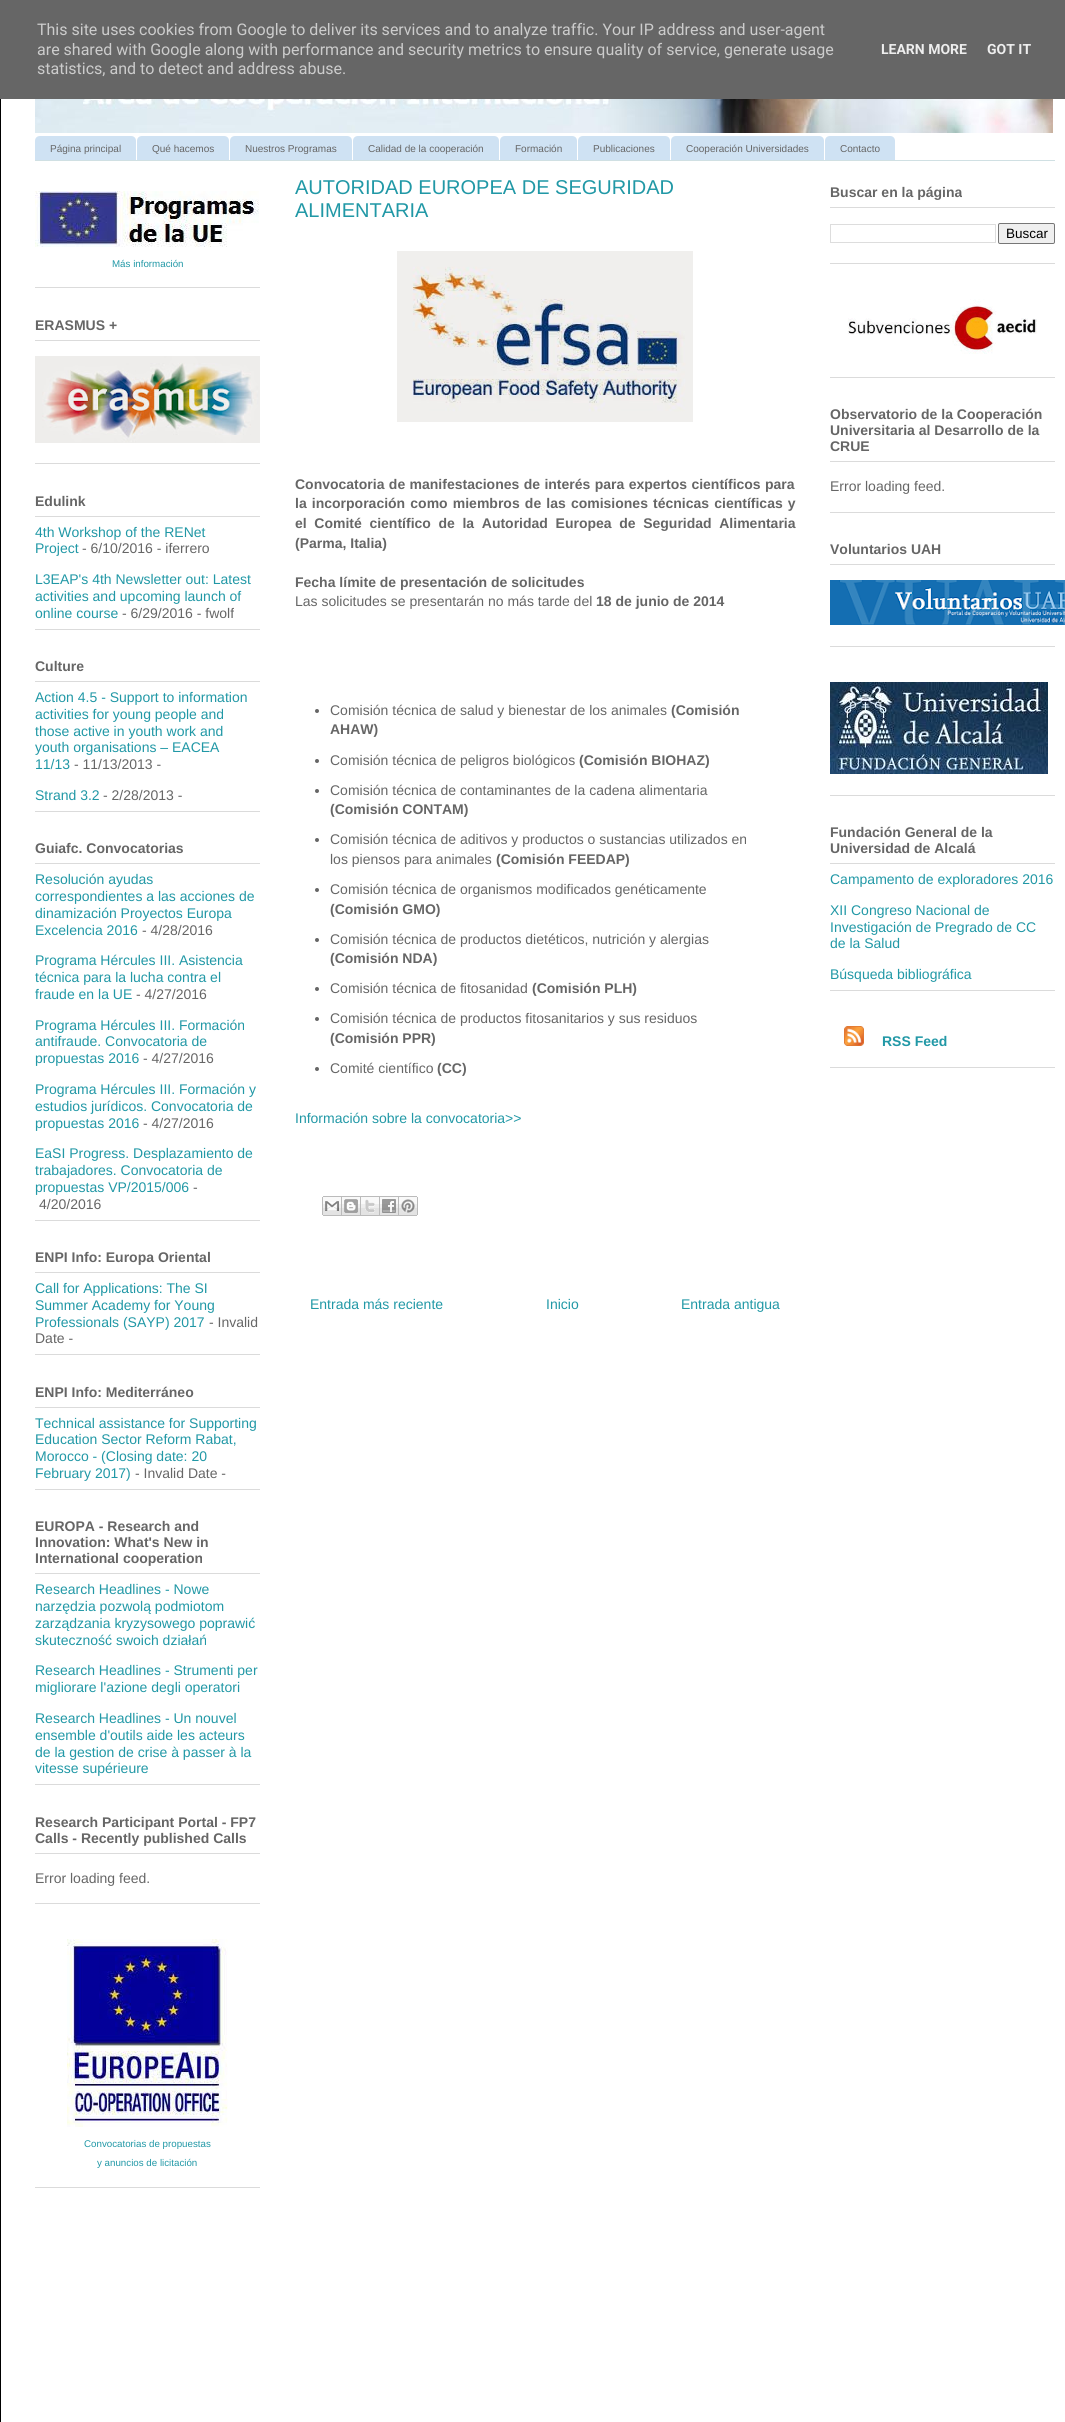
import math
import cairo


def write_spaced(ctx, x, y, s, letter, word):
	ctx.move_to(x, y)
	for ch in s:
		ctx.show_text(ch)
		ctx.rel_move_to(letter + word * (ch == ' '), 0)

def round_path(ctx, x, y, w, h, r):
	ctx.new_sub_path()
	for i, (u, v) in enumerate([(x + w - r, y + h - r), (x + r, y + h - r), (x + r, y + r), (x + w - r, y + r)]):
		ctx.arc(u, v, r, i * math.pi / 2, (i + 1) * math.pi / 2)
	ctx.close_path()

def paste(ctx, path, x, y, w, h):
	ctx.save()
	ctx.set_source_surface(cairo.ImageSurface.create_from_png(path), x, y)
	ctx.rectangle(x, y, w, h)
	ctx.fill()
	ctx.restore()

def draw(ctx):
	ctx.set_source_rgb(1, 1, 1)
	ctx.paint()
	ctx.set_source_rgb(0.4, 0.4, 0.4)
	ctx.rectangle(0, 0, 1065, 99)
	ctx.fill()
	ctx.select_font_face('Roboto')
	ctx.set_font_size(16)
	ctx.set_source_rgb(0.8, 0.8, 0.8)
	for x, y, s in [
		(37, 35, 'This site uses cookies from Google to deliver its services and to analyze traffic. Your IP address and user-agent'),
		(37, 55, 'are shared with Google along with performance and security metrics to ensure quality of service, generate usage'),
		(37, 74, 'statistics, and to detect and address abuse.'),
	]:
		ctx.move_to(x, y)
		ctx.show_text(s)
	ctx.select_font_face('Roboto', cairo.FONT_SLANT_NORMAL, cairo.FONT_WEIGHT_BOLD)
	ctx.set_font_size(14)
	ctx.set_source_rgb(0.933, 0.933, 0.933)
	ctx.move_to(881, 54)
	ctx.show_text('LEARN MORE')
	ctx.move_to(987, 54)
	ctx.show_text('GOT IT')
	ctx.set_source_rgb(0, 0, 0)
	ctx.rectangle(0, 99, 1, 2323)
	ctx.fill()
	paste(ctx, 'media/1.png', 35, 99, 1018, 34)
	ctx.set_source_rgb(0.816, 0.878, 0.89)
	ctx.rectangle(35, 160, 1020, 1)
	ctx.fill()
	ctx.set_source_rgb(0.812, 0.886, 0.953)
	ctx.new_path()
	ctx.move_to(40, 136)
	ctx.line_to(131, 136)
	ctx.curve_to(134, 136, 136, 138, 136, 141)
	ctx.line_to(136, 160)
	ctx.line_to(35, 160)
	ctx.line_to(35, 141)
	ctx.curve_to(35, 138, 37, 136, 40, 136)
	ctx.close_path()
	ctx.fill()
	ctx.select_font_face('Arimo')
	ctx.set_font_size(10)
	ctx.set_source_rgb(0.4, 0.4, 0.4)
	ctx.move_to(50, 152)
	ctx.show_text('Página principal')
	ctx.set_source_rgb(0.812, 0.886, 0.953)
	ctx.new_path()
	ctx.move_to(142, 136)
	ctx.line_to(224, 136)
	ctx.curve_to(227, 136, 229, 138, 229, 141)
	ctx.line_to(229, 160)
	ctx.line_to(137, 160)
	ctx.line_to(137, 141)
	ctx.curve_to(137, 138, 139, 136, 142, 136)
	ctx.close_path()
	ctx.fill()
	ctx.set_source_rgb(0.4, 0.4, 0.4)
	ctx.move_to(152, 152)
	ctx.show_text('Qué hacemos')
	ctx.set_source_rgb(0.812, 0.886, 0.953)
	ctx.new_path()
	ctx.move_to(235, 136)
	ctx.line_to(347, 136)
	ctx.curve_to(350, 136, 352, 138, 352, 141)
	ctx.line_to(352, 160)
	ctx.line_to(230, 160)
	ctx.line_to(230, 141)
	ctx.curve_to(230, 138, 232, 136, 235, 136)
	ctx.close_path()
	ctx.fill()
	ctx.set_source_rgb(0.4, 0.4, 0.4)
	ctx.move_to(245, 152)
	ctx.show_text('Nuestros Programas')
	ctx.set_source_rgb(0.812, 0.886, 0.953)
	ctx.new_path()
	ctx.move_to(358, 136)
	ctx.line_to(494, 136)
	ctx.curve_to(497, 136, 499, 138, 499, 141)
	ctx.line_to(499, 160)
	ctx.line_to(353, 160)
	ctx.line_to(353, 141)
	ctx.curve_to(353, 138, 355, 136, 358, 136)
	ctx.close_path()
	ctx.fill()
	ctx.set_source_rgb(0.4, 0.4, 0.4)
	ctx.move_to(368, 152)
	ctx.show_text('Calidad de la cooperación')
	ctx.set_source_rgb(0.812, 0.886, 0.953)
	ctx.new_path()
	ctx.move_to(505, 136)
	ctx.line_to(572, 136)
	ctx.curve_to(575, 136, 577, 138, 577, 141)
	ctx.line_to(577, 160)
	ctx.line_to(500, 160)
	ctx.line_to(500, 141)
	ctx.curve_to(500, 138, 502, 136, 505, 136)
	ctx.close_path()
	ctx.fill()
	ctx.set_source_rgb(0.4, 0.4, 0.4)
	ctx.move_to(515, 152)
	ctx.show_text('Formación')
	ctx.set_source_rgb(0.812, 0.886, 0.953)
	ctx.new_path()
	ctx.move_to(583, 136)
	ctx.line_to(665, 136)
	ctx.curve_to(668, 136, 670, 138, 670, 141)
	ctx.line_to(670, 160)
	ctx.line_to(578, 160)
	ctx.line_to(578, 141)
	ctx.curve_to(578, 138, 580, 136, 583, 136)
	ctx.close_path()
	ctx.fill()
	ctx.set_source_rgb(0.4, 0.4, 0.4)
	ctx.move_to(593, 152)
	ctx.show_text('Publicaciones')
	ctx.set_source_rgb(0.812, 0.886, 0.953)
	ctx.new_path()
	ctx.move_to(676, 136)
	ctx.line_to(819, 136)
	ctx.curve_to(822, 136, 824, 138, 824, 141)
	ctx.line_to(824, 160)
	ctx.line_to(671, 160)
	ctx.line_to(671, 141)
	ctx.curve_to(671, 138, 673, 136, 676, 136)
	ctx.close_path()
	ctx.fill()
	ctx.set_source_rgb(0.4, 0.4, 0.4)
	ctx.move_to(686, 152)
	ctx.show_text('Cooperación Universidades')
	ctx.set_source_rgb(0.812, 0.886, 0.953)
	ctx.new_path()
	ctx.move_to(830, 136)
	ctx.line_to(890, 136)
	ctx.curve_to(893, 136, 895, 138, 895, 141)
	ctx.line_to(895, 160)
	ctx.line_to(825, 160)
	ctx.line_to(825, 141)
	ctx.curve_to(825, 138, 827, 136, 830, 136)
	ctx.close_path()
	ctx.fill()
	ctx.set_source_rgb(0.4, 0.4, 0.4)
	ctx.move_to(840, 152)
	ctx.show_text('Contacto')
	ctx.set_source_rgb(0.859, 0.859, 0.859)
	ctx.rectangle(35, 287, 225, 1)
	ctx.fill()
	paste(ctx, 'media/2.png', 35, 191, 224, 56)
	ctx.select_font_face('Liberation Sans')
	ctx.set_font_size(9.75)
	ctx.set_source_rgb(0.129, 0.596, 0.651)
	ctx.move_to(112, 267)
	ctx.show_text('Más información')
	ctx.set_source_rgb(0.859, 0.859, 0.859)
	ctx.rectangle(35, 463, 225, 1)
	ctx.fill()
	ctx.rectangle(35, 340, 225, 1)
	ctx.fill()
	ctx.select_font_face('Liberation Sans', cairo.FONT_SLANT_NORMAL, cairo.FONT_WEIGHT_BOLD)
	ctx.set_font_size(14)
	ctx.set_source_rgb(0.4, 0.4, 0.4)
	ctx.move_to(35, 330)
	ctx.show_text('ERASMUS +')
	paste(ctx, 'media/3.png', 35, 356, 225, 87)
	ctx.set_source_rgb(0.859, 0.859, 0.859)
	ctx.rectangle(35, 629, 225, 1)
	ctx.fill()
	ctx.rectangle(35, 516, 225, 1)
	ctx.fill()
	ctx.set_source_rgb(0.4, 0.4, 0.4)
	ctx.move_to(35, 506)
	ctx.show_text('Edulink')
	ctx.select_font_face('Liberation Sans')
	ctx.set_source_rgb(0.129, 0.596, 0.651)
	ctx.move_to(35, 537)
	ctx.show_text('4th Workshop of the RENet')
	ctx.move_to(35, 553)
	ctx.show_text('Project')
	ctx.set_source_rgb(0.4, 0.4, 0.4)
	ctx.move_to(82, 553)
	ctx.show_text('- 6/10/2016 - iferrero')
	ctx.set_source_rgb(0.129, 0.596, 0.651)
	for x, y, s in [
		(35, 584, 'L3EAP\'s 4th Newsletter out: Latest'),
		(35, 601, 'activities and upcoming launch of'),
		(35, 618, 'online course'),
	]:
		ctx.move_to(x, y)
		ctx.show_text(s)
	ctx.set_source_rgb(0.4, 0.4, 0.4)
	ctx.move_to(122, 618)
	ctx.show_text('- 6/29/2016 - fwolf')
	ctx.set_source_rgb(0.859, 0.859, 0.859)
	ctx.rectangle(35, 811, 225, 1)
	ctx.fill()
	ctx.rectangle(35, 681, 225, 1)
	ctx.fill()
	ctx.select_font_face('Liberation Sans', cairo.FONT_SLANT_NORMAL, cairo.FONT_WEIGHT_BOLD)
	ctx.set_source_rgb(0.4, 0.4, 0.4)
	ctx.move_to(35, 671)
	ctx.show_text('Culture')
	ctx.select_font_face('Liberation Sans')
	ctx.set_source_rgb(0.129, 0.596, 0.651)
	for x, y, s in [
		(35, 702, 'Action 4.5 - Support to information'),
		(35, 719, 'activities for young people and'),
		(35, 736, 'those active in youth work and'),
		(35, 752, 'youth organisations – EACEA'),
		(35, 769, '11/13'),
	]:
		ctx.move_to(x, y)
		ctx.show_text(s)
	ctx.set_source_rgb(0.4, 0.4, 0.4)
	ctx.move_to(74, 769)
	ctx.show_text('- 11/13/2013 -')
	ctx.set_source_rgb(0.129, 0.596, 0.651)
	ctx.move_to(35, 800)
	ctx.show_text('Strand 3.2')
	ctx.set_source_rgb(0.4, 0.4, 0.4)
	ctx.move_to(103, 800)
	ctx.show_text('- 2/28/2013 -')
	ctx.set_source_rgb(0.859, 0.859, 0.859)
	ctx.rectangle(35, 1220, 225, 1)
	ctx.fill()
	ctx.rectangle(35, 863, 225, 1)
	ctx.fill()
	ctx.select_font_face('Liberation Sans', cairo.FONT_SLANT_NORMAL, cairo.FONT_WEIGHT_BOLD)
	ctx.set_source_rgb(0.4, 0.4, 0.4)
	ctx.move_to(35, 853)
	ctx.show_text('Guiafc. Convocatorias')
	ctx.select_font_face('Liberation Sans')
	ctx.set_source_rgb(0.129, 0.596, 0.651)
	for x, y, s in [
		(35, 884, 'Resolución ayudas'),
		(35, 901, 'correspondientes a las acciones de'),
		(35, 918, 'dinamización Proyectos Europa'),
		(35, 935, 'Excelencia 2016'),
	]:
		ctx.move_to(x, y)
		ctx.show_text(s)
	ctx.set_source_rgb(0.4, 0.4, 0.4)
	ctx.move_to(142, 935)
	ctx.show_text('- 4/28/2016')
	ctx.set_source_rgb(0.129, 0.596, 0.651)
	for x, y, s in [
		(35, 965, 'Programa Hércules III. Asistencia'),
		(35, 982, 'técnica para la lucha contra el'),
		(35, 999, 'fraude en la UE'),
	]:
		ctx.move_to(x, y)
		ctx.show_text(s)
	ctx.set_source_rgb(0.4, 0.4, 0.4)
	ctx.move_to(136, 999)
	ctx.show_text('- 4/27/2016')
	ctx.set_source_rgb(0.129, 0.596, 0.651)
	for x, y, s in [
		(35, 1030, 'Programa Hércules III. Formación'),
		(35, 1046, 'antifraude. Convocatoria de'),
		(35, 1063, 'propuestas 2016'),
	]:
		ctx.move_to(x, y)
		ctx.show_text(s)
	ctx.set_source_rgb(0.4, 0.4, 0.4)
	ctx.move_to(143, 1063)
	ctx.show_text('- 4/27/2016')
	ctx.set_source_rgb(0.129, 0.596, 0.651)
	for x, y, s in [
		(35, 1094, 'Programa Hércules III. Formación y'),
		(35, 1111, 'estudios jurídicos. Convocatoria de'),
		(35, 1128, 'propuestas 2016'),
	]:
		ctx.move_to(x, y)
		ctx.show_text(s)
	ctx.set_source_rgb(0.4, 0.4, 0.4)
	ctx.move_to(143, 1128)
	ctx.show_text('- 4/27/2016')
	ctx.set_source_rgb(0.129, 0.596, 0.651)
	for x, y, s in [
		(35, 1158, 'EaSI Progress. Desplazamiento de'),
		(35, 1175, 'trabajadores. Convocatoria de'),
		(35, 1192, 'propuestas VP/2015/006'),
	]:
		ctx.move_to(x, y)
		ctx.show_text(s)
	ctx.set_source_rgb(0.4, 0.4, 0.4)
	ctx.move_to(193, 1192)
	ctx.show_text('-')
	ctx.move_to(39, 1209)
	ctx.show_text('4/20/2016')
	ctx.set_source_rgb(0.859, 0.859, 0.859)
	ctx.rectangle(35, 1354, 225, 1)
	ctx.fill()
	ctx.rectangle(35, 1272, 225, 1)
	ctx.fill()
	ctx.select_font_face('Liberation Sans', cairo.FONT_SLANT_NORMAL, cairo.FONT_WEIGHT_BOLD)
	ctx.set_source_rgb(0.4, 0.4, 0.4)
	ctx.move_to(35, 1262)
	ctx.show_text('ENPI Info: Europa Oriental')
	ctx.select_font_face('Liberation Sans')
	ctx.set_source_rgb(0.129, 0.596, 0.651)
	for x, y, s in [
		(35, 1293, 'Call for Applications: The SI'),
		(35, 1310, 'Summer Academy for Young'),
		(35, 1327, 'Professionals (SAYP) 2017'),
	]:
		ctx.move_to(x, y)
		ctx.show_text(s)
	ctx.set_source_rgb(0.4, 0.4, 0.4)
	ctx.move_to(209, 1327)
	ctx.show_text('- Invalid')
	ctx.move_to(35, 1343)
	ctx.show_text('Date -')
	ctx.set_source_rgb(0.859, 0.859, 0.859)
	ctx.rectangle(35, 1489, 225, 1)
	ctx.fill()
	ctx.rectangle(35, 1407, 225, 1)
	ctx.fill()
	ctx.select_font_face('Liberation Sans', cairo.FONT_SLANT_NORMAL, cairo.FONT_WEIGHT_BOLD)
	ctx.set_source_rgb(0.4, 0.4, 0.4)
	ctx.move_to(35, 1397)
	ctx.show_text('ENPI Info: Mediterráneo')
	ctx.select_font_face('Liberation Sans')
	ctx.set_source_rgb(0.129, 0.596, 0.651)
	for x, y, s in [
		(35, 1428, 'Technical assistance for Supporting'),
		(35, 1444, 'Education Sector Reform Rabat,'),
		(35, 1461, 'Morocco - (Closing date: 20'),
		(35, 1478, 'February 2017)'),
	]:
		ctx.move_to(x, y)
		ctx.show_text(s)
	ctx.set_source_rgb(0.4, 0.4, 0.4)
	ctx.move_to(135, 1478)
	ctx.show_text('- Invalid Date -')
	ctx.set_source_rgb(0.859, 0.859, 0.859)
	ctx.rectangle(35, 1784, 225, 1)
	ctx.fill()
	ctx.rectangle(35, 1573, 225, 1)
	ctx.fill()
	ctx.select_font_face('Liberation Sans', cairo.FONT_SLANT_NORMAL, cairo.FONT_WEIGHT_BOLD)
	ctx.set_source_rgb(0.4, 0.4, 0.4)
	for x, y, s in [
		(35, 1531, 'EUROPA - Research and'),
		(35, 1547, 'Innovation: What\'s New in'),
		(35, 1563, 'International cooperation'),
	]:
		ctx.move_to(x, y)
		ctx.show_text(s)
	ctx.select_font_face('Liberation Sans')
	ctx.set_source_rgb(0.129, 0.596, 0.651)
	for x, y, s in [
		(35, 1594, 'Research Headlines - Nowe'),
		(35, 1611, 'narzędzia pozwolą podmiotom'),
		(35, 1628, 'zarządzania kryzysowego poprawić'),
		(35, 1645, 'skuteczność swoich działań'),
		(35, 1675, 'Research Headlines - Strumenti per'),
		(35, 1692, 'migliorare l\'azione degli operatori'),
		(35, 1723, 'Research Headlines - Un nouvel'),
		(35, 1740, 'ensemble d\'outils aide les acteurs'),
		(35, 1757, 'de la gestion de crise à passer à la'),
		(35, 1773, 'vitesse supérieure'),
	]:
		ctx.move_to(x, y)
		ctx.show_text(s)
	ctx.set_source_rgb(0.859, 0.859, 0.859)
	ctx.rectangle(35, 1903, 225, 1)
	ctx.fill()
	ctx.rectangle(35, 1853, 225, 1)
	ctx.fill()
	ctx.select_font_face('Liberation Sans', cairo.FONT_SLANT_NORMAL, cairo.FONT_WEIGHT_BOLD)
	ctx.set_source_rgb(0.4, 0.4, 0.4)
	ctx.move_to(35, 1827)
	ctx.show_text('Research Participant Portal - FP7')
	ctx.move_to(35, 1843)
	ctx.show_text('Calls - Recently published Calls')
	ctx.select_font_face('Liberation Sans')
	ctx.move_to(35, 1883)
	ctx.show_text('Error loading feed.')
	ctx.set_source_rgb(0.859, 0.859, 0.859)
	ctx.rectangle(35, 2187, 225, 1)
	ctx.fill()
	paste(ctx, 'media/4.png', 67, 1939, 161, 188)
	ctx.set_font_size(9.75)
	ctx.set_source_rgb(0.129, 0.596, 0.651)
	ctx.move_to(84, 2147)
	ctx.show_text('Convocatorias de propuestas')
	ctx.move_to(97, 2166)
	ctx.show_text('y anuncios de licitación')
	ctx.set_font_size(20)
	ctx.move_to(295, 194)
	ctx.show_text('AUTORIDAD EUROPEA DE SEGURIDAD')
	ctx.move_to(295, 217)
	ctx.show_text('ALIMENTARIA')
	paste(ctx, 'media/5.png', 397, 251, 296, 171)
	ctx.select_font_face('Liberation Sans', cairo.FONT_SLANT_NORMAL, cairo.FONT_WEIGHT_BOLD)
	ctx.set_font_size(14)
	ctx.set_source_rgb(0.4, 0.4, 0.4)
	write_spaced(ctx, 295, 489, 'Convocatoria de manifestaciones de interés para expertos científicos para', 0, 0.5)
	write_spaced(ctx, 295, 508, 'la incorporación como miembros de las comisiones técnicas científicas y', 0, 1.25)
	write_spaced(ctx, 295, 528, 'el Comité científico de la Autoridad Europea de Seguridad Alimentaria', 0, 3.75)
	ctx.move_to(295, 548)
	ctx.show_text('(Parma, Italia)')
	ctx.move_to(295, 587)
	ctx.show_text('Fecha límite de presentación de solicitudes')
	ctx.select_font_face('Liberation Sans')
	ctx.move_to(295, 606)
	ctx.show_text('Las solicitudes se presentarán no más tarde del')
	ctx.select_font_face('Liberation Sans', cairo.FONT_SLANT_NORMAL, cairo.FONT_WEIGHT_BOLD)
	ctx.move_to(596, 606)
	ctx.show_text('18 de junio de 2014')
	ctx.new_path()
	ctx.arc(317, 711, 2, 0, 2 * math.pi)
	ctx.fill()
	ctx.select_font_face('Liberation Sans')
	ctx.move_to(330, 715)
	ctx.show_text('Comisión técnica de salud y bienestar de los animales')
	ctx.select_font_face('Liberation Sans', cairo.FONT_SLANT_NORMAL, cairo.FONT_WEIGHT_BOLD)
	ctx.move_to(671, 715)
	ctx.show_text('(Comisión')
	ctx.move_to(330, 734)
	ctx.show_text('AHAW)')
	ctx.new_path()
	ctx.arc(317, 761, 2, 0, 2 * math.pi)
	ctx.fill()
	ctx.select_font_face('Liberation Sans')
	ctx.move_to(330, 765)
	ctx.show_text('Comisión técnica de peligros biológicos')
	ctx.select_font_face('Liberation Sans', cairo.FONT_SLANT_NORMAL, cairo.FONT_WEIGHT_BOLD)
	ctx.move_to(579, 765)
	ctx.show_text('(Comisión BIOHAZ)')
	ctx.new_path()
	ctx.arc(317, 791, 2, 0, 2 * math.pi)
	ctx.fill()
	ctx.select_font_face('Liberation Sans')
	ctx.move_to(330, 795)
	ctx.show_text('Comisión técnica de contaminantes de la cadena alimentaria')
	ctx.select_font_face('Liberation Sans', cairo.FONT_SLANT_NORMAL, cairo.FONT_WEIGHT_BOLD)
	ctx.move_to(330, 814)
	ctx.show_text('(Comisión CONTAM)')
	ctx.new_path()
	ctx.arc(317, 840, 2, 0, 2 * math.pi)
	ctx.fill()
	ctx.select_font_face('Liberation Sans')
	ctx.move_to(330, 844)
	ctx.show_text('Comisión técnica de aditivos y productos o sustancias utilizados en')
	ctx.move_to(330, 864)
	ctx.show_text('los piensos para animales')
	ctx.select_font_face('Liberation Sans', cairo.FONT_SLANT_NORMAL, cairo.FONT_WEIGHT_BOLD)
	ctx.move_to(496, 864)
	ctx.show_text('(Comisión FEEDAP)')
	ctx.new_path()
	ctx.arc(317, 890, 2, 0, 2 * math.pi)
	ctx.fill()
	ctx.select_font_face('Liberation Sans')
	ctx.move_to(330, 894)
	ctx.show_text('Comisión técnica de organismos modificados genéticamente')
	ctx.select_font_face('Liberation Sans', cairo.FONT_SLANT_NORMAL, cairo.FONT_WEIGHT_BOLD)
	ctx.move_to(330, 914)
	ctx.show_text('(Comisión GMO)')
	ctx.new_path()
	ctx.arc(317, 940, 2, 0, 2 * math.pi)
	ctx.fill()
	ctx.select_font_face('Liberation Sans')
	ctx.move_to(330, 944)
	ctx.show_text('Comisión técnica de productos dietéticos, nutrición y alergias')
	ctx.select_font_face('Liberation Sans', cairo.FONT_SLANT_NORMAL, cairo.FONT_WEIGHT_BOLD)
	ctx.move_to(330, 963)
	ctx.show_text('(Comisión NDA)')
	ctx.new_path()
	ctx.arc(317, 989, 2, 0, 2 * math.pi)
	ctx.fill()
	ctx.select_font_face('Liberation Sans')
	ctx.move_to(330, 993)
	ctx.show_text('Comisión técnica de fitosanidad')
	ctx.select_font_face('Liberation Sans', cairo.FONT_SLANT_NORMAL, cairo.FONT_WEIGHT_BOLD)
	ctx.move_to(532, 993)
	ctx.show_text('(Comisión PLH)')
	ctx.new_path()
	ctx.arc(317, 1019, 2, 0, 2 * math.pi)
	ctx.fill()
	ctx.select_font_face('Liberation Sans')
	ctx.move_to(330, 1023)
	ctx.show_text('Comisión técnica de productos fitosanitarios y sus residuos')
	ctx.select_font_face('Liberation Sans', cairo.FONT_SLANT_NORMAL, cairo.FONT_WEIGHT_BOLD)
	ctx.move_to(330, 1043)
	ctx.show_text('(Comisión PPR)')
	ctx.new_path()
	ctx.arc(317, 1069, 2, 0, 2 * math.pi)
	ctx.fill()
	ctx.select_font_face('Liberation Sans')
	ctx.move_to(330, 1073)
	ctx.show_text('Comité científico')
	ctx.select_font_face('Liberation Sans', cairo.FONT_SLANT_NORMAL, cairo.FONT_WEIGHT_BOLD)
	ctx.move_to(437, 1073)
	ctx.show_text('(CC)')
	ctx.select_font_face('Liberation Sans')
	ctx.set_source_rgb(0.129, 0.596, 0.651)
	ctx.move_to(295, 1123)
	ctx.show_text('Información sobre la convocatoria>>')
	paste(ctx, 'media/6.png', 322, 1196, 20, 20)
	paste(ctx, 'media/7.png', 342, 1196, 19, 20)
	paste(ctx, 'media/8.png', 361, 1196, 19, 20)
	paste(ctx, 'media/9.png', 380, 1196, 19, 20)
	paste(ctx, 'media/10.png', 399, 1196, 19, 20)
	for x, y, s in [
		(310, 1309, 'Entrada más reciente'),
		(546, 1309, 'Inicio'),
		(681, 1309, 'Entrada antigua'),
	]:
		ctx.move_to(x, y)
		ctx.show_text(s)
	ctx.set_source_rgb(0.859, 0.859, 0.859)
	ctx.rectangle(830, 263, 225, 1)
	ctx.fill()
	ctx.rectangle(830, 207, 225, 1)
	ctx.fill()
	ctx.select_font_face('Liberation Sans', cairo.FONT_SLANT_NORMAL, cairo.FONT_WEIGHT_BOLD)
	ctx.set_source_rgb(0.4, 0.4, 0.4)
	ctx.move_to(830, 197)
	ctx.show_text('Buscar en la página')
	ctx.rectangle(830.5, 224.5, 165, 18)
	ctx.set_source_rgb(0.867, 0.867, 0.867)
	ctx.set_line_width(1)
	ctx.stroke()
	ctx.set_source_rgb(0.937, 0.937, 0.937)
	round_path(ctx, 998.5, 223.5, 56, 20, 1.5)
	ctx.fill_preserve()
	ctx.set_source_rgb(0.463, 0.463, 0.463)
	ctx.stroke()
	ctx.select_font_face('Liberation Sans')
	ctx.set_font_size(13.5)
	ctx.set_source_rgb(0, 0, 0)
	ctx.move_to(1006, 238)
	ctx.show_text('Buscar')
	ctx.set_source_rgb(0.859, 0.859, 0.859)
	ctx.rectangle(830, 377, 225, 1)
	ctx.fill()
	paste(ctx, 'media/11.png', 847, 299, 190, 55)
	ctx.rectangle(830, 512, 225, 1)
	ctx.fill()
	ctx.rectangle(830, 461, 225, 1)
	ctx.fill()
	ctx.select_font_face('Liberation Sans', cairo.FONT_SLANT_NORMAL, cairo.FONT_WEIGHT_BOLD)
	ctx.set_font_size(14)
	ctx.set_source_rgb(0.4, 0.4, 0.4)
	for x, y, s in [
		(830, 419, 'Observatorio de la Cooperación'),
		(830, 435, 'Universitaria al Desarrollo de la'),
		(830, 451, 'CRUE'),
	]:
		ctx.move_to(x, y)
		ctx.show_text(s)
	ctx.select_font_face('Liberation Sans')
	ctx.move_to(830, 491)
	ctx.show_text('Error loading feed.')
	ctx.set_source_rgb(0.859, 0.859, 0.859)
	ctx.rectangle(830, 646, 225, 1)
	ctx.fill()
	ctx.rectangle(830, 564, 225, 1)
	ctx.fill()
	ctx.select_font_face('Liberation Sans', cairo.FONT_SLANT_NORMAL, cairo.FONT_WEIGHT_BOLD)
	ctx.set_source_rgb(0.4, 0.4, 0.4)
	ctx.move_to(830, 554)
	ctx.show_text('Voluntarios UAH')
	paste(ctx, 'media/12.png', 830, 580, 235, 45)
	ctx.set_source_rgb(0.859, 0.859, 0.859)
	ctx.rectangle(830, 795, 225, 1)
	ctx.fill()
	paste(ctx, 'media/13.png', 830, 682, 218, 92)
	ctx.rectangle(830, 990, 225, 1)
	ctx.fill()
	ctx.rectangle(830, 863, 225, 1)
	ctx.fill()
	ctx.set_source_rgb(0.4, 0.4, 0.4)
	ctx.move_to(830, 837)
	ctx.show_text('Fundación General de la')
	ctx.move_to(830, 853)
	ctx.show_text('Universidad de Alcalá')
	ctx.select_font_face('Liberation Sans')
	ctx.set_source_rgb(0.129, 0.596, 0.651)
	for x, y, s in [
		(830, 884, 'Campamento de exploradores 2016'),
		(830, 915, 'XII Congreso Nacional de'),
		(830, 932, 'Investigación de Pregrado de CC'),
		(830, 948, 'de la Salud'),
		(830, 979, 'Búsqueda bibliográfica'),
	]:
		ctx.move_to(x, y)
		ctx.show_text(s)
	ctx.set_source_rgb(0.859, 0.859, 0.859)
	ctx.rectangle(830, 1067, 225, 1)
	ctx.fill()
	paste(ctx, 'media/14.png', 844, 1026, 20, 20)
	ctx.select_font_face('Liberation Sans', cairo.FONT_SLANT_NORMAL, cairo.FONT_WEIGHT_BOLD)
	ctx.set_source_rgb(0.129, 0.596, 0.651)
	ctx.move_to(882, 1046)
	ctx.show_text('RSS Feed')


surface = cairo.ImageSurface(cairo.FORMAT_RGB24, 1065, 2422)
ctx = cairo.Context(surface)
options = cairo.FontOptions()
options.set_hint_metrics(cairo.HINT_METRICS_OFF)
options.set_hint_style(cairo.HINT_STYLE_NONE)
ctx.set_font_options(options)
ctx.set_miter_limit(4)
draw(ctx)
surface.write_to_png('image.png')
